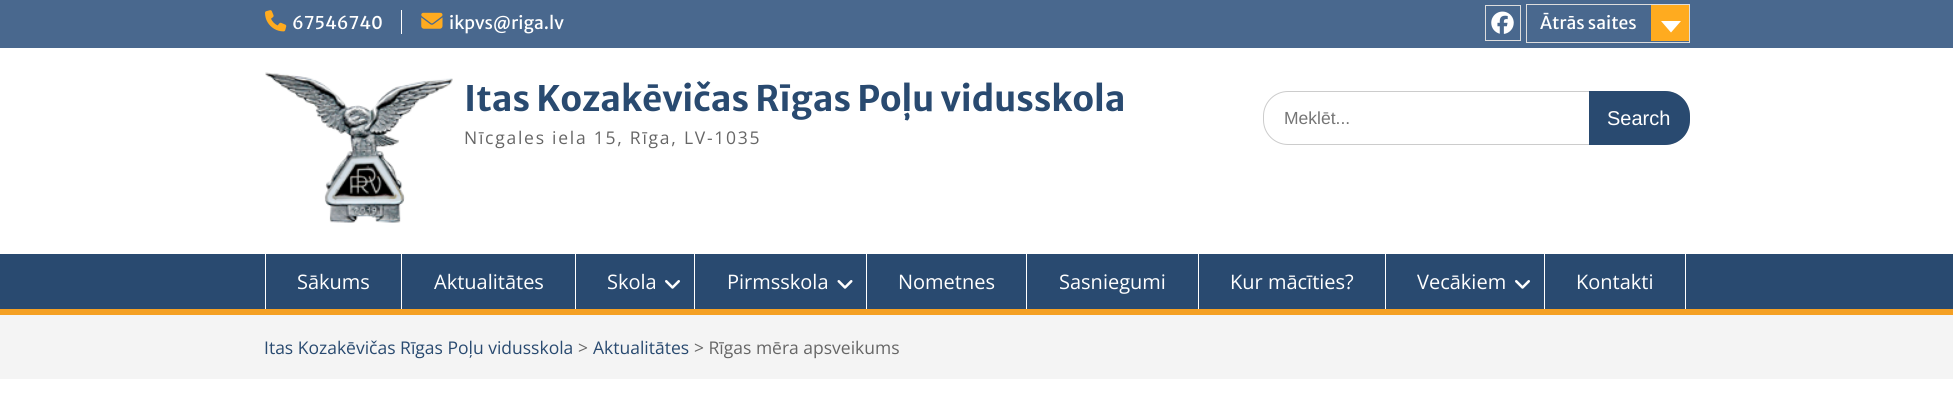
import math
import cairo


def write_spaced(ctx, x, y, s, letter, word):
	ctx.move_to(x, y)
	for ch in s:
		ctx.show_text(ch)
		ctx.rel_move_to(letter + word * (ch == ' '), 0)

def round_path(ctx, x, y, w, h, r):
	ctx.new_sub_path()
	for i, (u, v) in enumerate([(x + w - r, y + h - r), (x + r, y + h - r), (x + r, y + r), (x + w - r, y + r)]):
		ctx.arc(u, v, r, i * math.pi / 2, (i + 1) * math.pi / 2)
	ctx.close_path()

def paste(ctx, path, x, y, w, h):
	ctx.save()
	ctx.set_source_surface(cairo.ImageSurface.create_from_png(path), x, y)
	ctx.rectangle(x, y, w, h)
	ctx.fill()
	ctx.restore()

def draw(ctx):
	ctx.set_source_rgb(1, 1, 1)
	ctx.paint()
	ctx.set_source_rgb(0.286, 0.408, 0.557)
	ctx.rectangle(0, 0, 1953, 48)
	ctx.fill()
	paste(ctx, 'media/1.png', 265, 10, 22, 22)
	ctx.select_font_face('Merriweather Sans')
	ctx.set_font_size(17.5)
	ctx.set_source_rgb(1, 1, 1)
	ctx.move_to(292, 29)
	ctx.show_text('67546740')
	ctx.rectangle(401, 10, 1, 24)
	ctx.fill()
	paste(ctx, 'media/2.png', 421, 12, 22, 17)
	ctx.move_to(449, 29)
	ctx.show_text('ikpvs@riga.lv')
	ctx.rectangle(1485.5, 5.5, 35, 35)
	ctx.set_source_rgb(0.867, 0.867, 0.867)
	ctx.set_line_width(1)
	ctx.stroke()
	paste(ctx, 'media/3.png', 1491, 11, 23, 23)
	ctx.rectangle(1526.5, 4.5, 163, 38)
	ctx.stroke()
	ctx.set_source_rgb(1, 1, 1)
	ctx.move_to(1540, 29)
	ctx.show_text('Ātrās saites')
	ctx.set_source_rgb(1, 0.671, 0.122)
	ctx.rectangle(1651, 5, 38, 36)
	ctx.fill()
	ctx.set_source_rgb(1, 1, 1)
	ctx.new_path()
	ctx.move_to(1661, 21)
	ctx.line_to(1681, 21)
	ctx.line_to(1671, 32.5)
	ctx.close_path()
	ctx.fill()
	paste(ctx, 'media/4.png', 265, 72, 188, 151)
	ctx.select_font_face('Merriweather Sans', cairo.FONT_SLANT_NORMAL, cairo.FONT_WEIGHT_BOLD)
	ctx.set_font_size(35)
	ctx.set_source_rgb(0.161, 0.29, 0.439)
	ctx.move_to(464, 111)
	ctx.show_text('Itas Kozakēvičas Rīgas Poļu vidusskola')
	ctx.select_font_face('Open Sans')
	ctx.set_font_size(17.5)
	ctx.set_source_rgb(0.4, 0.4, 0.4)
	write_spaced(ctx, 464, 144, 'Nīcgales iela 15, Rīga, LV-1035', 1.75, 0)
	round_path(ctx, 1263.5, 91.5, 426, 53, 24.5)
	ctx.set_source_rgb(0.8, 0.8, 0.8)
	ctx.stroke()
	ctx.select_font_face('Liberation Sans')
	ctx.set_source_rgb(0.459, 0.459, 0.459)
	ctx.move_to(1284, 124)
	ctx.show_text('Meklēt...')
	ctx.set_source_rgb(0.161, 0.29, 0.439)
	ctx.new_path()
	ctx.move_to(1589, 91)
	ctx.line_to(1665, 91)
	ctx.curve_to(1679, 91, 1690, 102, 1690, 116)
	ctx.line_to(1690, 120)
	ctx.curve_to(1690, 134, 1679, 145, 1665, 145)
	ctx.line_to(1589, 145)
	ctx.close_path()
	ctx.fill()
	ctx.set_font_size(20)
	ctx.set_source_rgb(1, 1, 1)
	ctx.move_to(1607, 125)
	ctx.show_text('Search')
	ctx.set_source_rgb(0.161, 0.29, 0.439)
	ctx.rectangle(0, 254, 1953, 55)
	ctx.fill()
	ctx.set_source_rgb(0.957, 0.627, 0.141)
	ctx.rectangle(0, 309, 1953, 6)
	ctx.fill()
	ctx.set_source_rgb(1, 1, 1)
	ctx.rectangle(401, 254, 1, 55)
	ctx.rectangle(265, 254, 1, 55)
	ctx.fill()
	ctx.select_font_face('Open Sans')
	ctx.move_to(297, 289)
	ctx.show_text('Sākums')
	ctx.rectangle(575, 254, 1, 55)
	ctx.fill()
	ctx.move_to(434, 289)
	ctx.show_text('Aktualitātes')
	ctx.rectangle(694, 254, 1, 55)
	ctx.fill()
	ctx.move_to(607, 289)
	ctx.show_text('Skola')
	paste(ctx, 'media/5.png', 665, 280, 15, 9)
	ctx.rectangle(866, 254, 1, 55)
	ctx.fill()
	ctx.move_to(727, 289)
	ctx.show_text('Pirmsskola')
	paste(ctx, 'media/6.png', 837, 280, 16, 9)
	ctx.rectangle(1026, 254, 1, 55)
	ctx.fill()
	ctx.move_to(898, 289)
	ctx.show_text('Nometnes')
	ctx.rectangle(1198, 254, 1, 55)
	ctx.fill()
	ctx.move_to(1059, 289)
	ctx.show_text('Sasniegumi')
	ctx.rectangle(1385, 254, 1, 55)
	ctx.fill()
	ctx.move_to(1230, 289)
	ctx.show_text('Kur mācīties?')
	ctx.rectangle(1544, 254, 1, 55)
	ctx.fill()
	ctx.move_to(1417, 289)
	ctx.show_text('Vecākiem')
	paste(ctx, 'media/5.png', 1515, 280, 15, 9)
	ctx.rectangle(1685, 254, 1, 55)
	ctx.fill()
	ctx.move_to(1576, 289)
	ctx.show_text('Kontakti')
	ctx.set_source_rgb(0.957, 0.957, 0.957)
	ctx.rectangle(0, 315, 1953, 64)
	ctx.fill()
	ctx.set_font_size(17.5)
	ctx.set_source_rgb(0.161, 0.29, 0.439)
	ctx.move_to(264, 354)
	ctx.show_text('Itas Kozakēvičas Rīgas Poļu vidusskola')
	ctx.set_source_rgb(0.4, 0.4, 0.4)
	ctx.move_to(578, 354)
	ctx.show_text('>')
	ctx.set_source_rgb(0.161, 0.29, 0.439)
	ctx.move_to(593, 354)
	ctx.show_text('Aktualitātes')
	ctx.set_source_rgb(0.4, 0.4, 0.4)
	ctx.move_to(694, 354)
	ctx.show_text('> Rīgas mēra apsveikums')


surface = cairo.ImageSurface(cairo.FORMAT_RGB24, 1953, 406)
ctx = cairo.Context(surface)
options = cairo.FontOptions()
options.set_hint_metrics(cairo.HINT_METRICS_OFF)
options.set_hint_style(cairo.HINT_STYLE_NONE)
ctx.set_font_options(options)
ctx.set_miter_limit(4)
draw(ctx)
surface.write_to_png('image.png')
